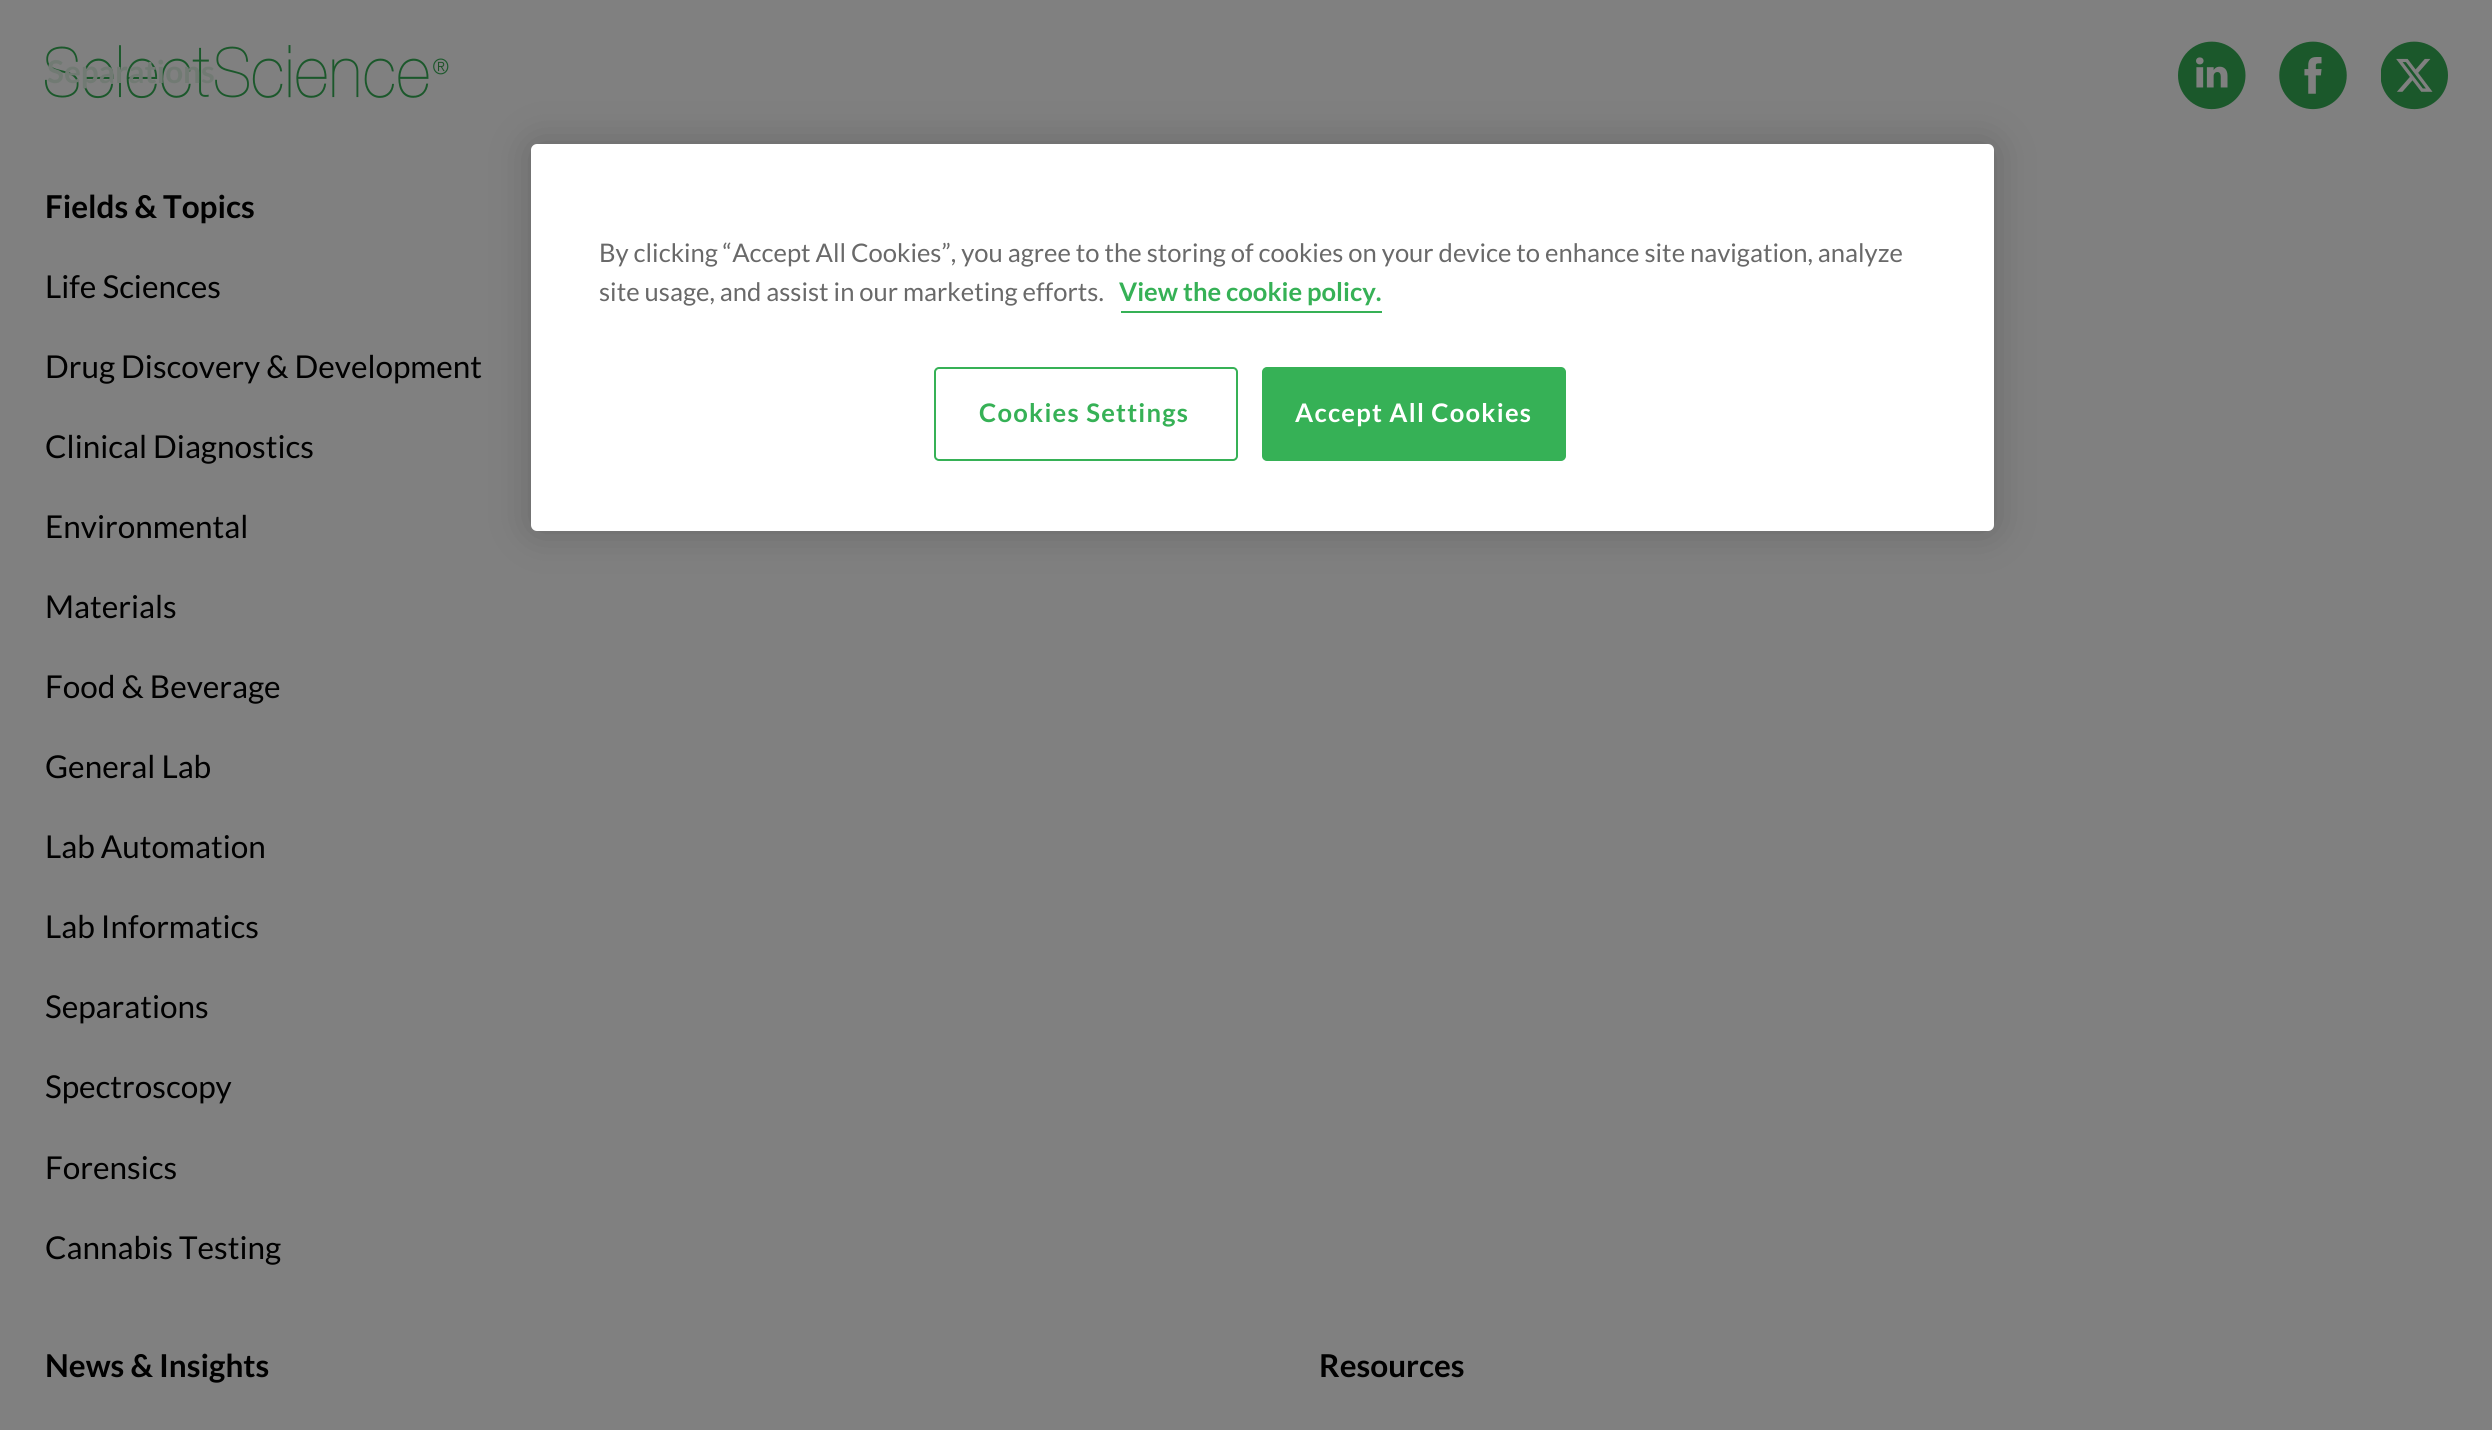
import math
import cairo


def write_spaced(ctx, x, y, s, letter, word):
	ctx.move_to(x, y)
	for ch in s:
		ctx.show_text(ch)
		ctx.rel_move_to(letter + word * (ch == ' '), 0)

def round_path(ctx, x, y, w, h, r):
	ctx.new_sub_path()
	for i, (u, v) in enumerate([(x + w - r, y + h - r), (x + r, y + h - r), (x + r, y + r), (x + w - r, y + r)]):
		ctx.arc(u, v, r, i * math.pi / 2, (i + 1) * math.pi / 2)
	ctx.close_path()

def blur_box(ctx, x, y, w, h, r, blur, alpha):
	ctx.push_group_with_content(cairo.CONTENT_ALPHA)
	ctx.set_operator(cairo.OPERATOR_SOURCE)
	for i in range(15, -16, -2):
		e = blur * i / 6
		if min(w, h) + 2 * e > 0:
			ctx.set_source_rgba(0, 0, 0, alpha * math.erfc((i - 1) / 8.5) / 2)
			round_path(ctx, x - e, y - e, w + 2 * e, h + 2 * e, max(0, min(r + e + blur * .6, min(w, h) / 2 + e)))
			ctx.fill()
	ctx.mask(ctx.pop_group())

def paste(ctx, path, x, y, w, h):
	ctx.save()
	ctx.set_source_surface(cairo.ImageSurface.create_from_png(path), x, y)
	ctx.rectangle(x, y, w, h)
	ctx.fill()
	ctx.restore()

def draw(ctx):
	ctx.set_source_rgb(0.502, 0.502, 0.502)
	ctx.paint()
	paste(ctx, 'media/1.png', 45, 45, 404, 54)
	ctx.select_font_face('Lato', cairo.FONT_SLANT_NORMAL, cairo.FONT_WEIGHT_BOLD)
	ctx.set_font_size(31.5)
	ctx.set_source_rgb(0.443, 0.478, 0.451)
	ctx.move_to(47, 83)
	ctx.show_text('Separations')
	paste(ctx, 'media/2.png', 2178, 41, 68, 69)
	paste(ctx, 'media/3.png', 2279, 41, 68, 69)
	paste(ctx, 'media/4.png', 2381, 41, 67, 69)
	ctx.set_source_rgb(0, 0, 0)
	ctx.move_to(45, 218)
	ctx.show_text('Fields & Topics')
	ctx.select_font_face('Lato')
	for x, y, s in [
		(45, 298, 'Life Sciences'),
		(45, 378, 'Drug Discovery & Development'),
		(45, 458, 'Clinical Diagnostics'),
		(45, 538, 'Environmental'),
		(45, 618, 'Materials'),
		(45, 698, 'Food & Beverage'),
		(45, 778, 'General Lab'),
		(45, 858, 'Lab Automation'),
		(45, 938, 'Lab Informatics'),
		(45, 1018, 'Separations'),
		(45, 1098, 'Spectroscopy'),
		(45, 1179, 'Forensics'),
		(45, 1259, 'Cannabis Testing'),
	]:
		ctx.move_to(x, y)
		ctx.show_text(s)
	ctx.select_font_face('Lato', cairo.FONT_SLANT_NORMAL, cairo.FONT_WEIGHT_BOLD)
	ctx.move_to(45, 1377)
	ctx.show_text('News & Insights')
	ctx.move_to(1319, 1377)
	ctx.show_text('Resources')
	ctx.set_source_rgb(0, 0, 0)
	blur_box(ctx, 531, 144, 1463, 387, 6, 20, 0.2)
	ctx.set_source_rgb(1, 1, 1)
	round_path(ctx, 531, 144, 1463, 387, 6)
	ctx.fill()
	ctx.select_font_face('Lato')
	ctx.set_font_size(25.6)
	ctx.set_source_rgb(0.412, 0.412, 0.412)
	ctx.move_to(599, 262)
	ctx.show_text('By clicking “Accept All Cookies”, you agree to the storing of cookies on your device to enhance site navigation, analyze')
	ctx.move_to(599, 301)
	ctx.show_text('site usage, and assist in our marketing efforts.')
	ctx.select_font_face('Lato', cairo.FONT_SLANT_NORMAL, cairo.FONT_WEIGHT_BOLD)
	ctx.set_source_rgb(0.212, 0.694, 0.337)
	ctx.move_to(1119, 301)
	ctx.show_text('View the cookie policy.')
	ctx.rectangle(1121, 311, 261, 2)
	ctx.fill()
	round_path(ctx, 935, 368, 302, 92, 4)
	ctx.stroke()
	write_spaced(ctx, 979, 422, 'Cookies Settings', 1.25, 0)
	round_path(ctx, 1263, 368, 302, 92, 4)
	ctx.fill_preserve()
	ctx.stroke()
	ctx.set_source_rgb(1, 1, 1)
	write_spaced(ctx, 1295, 422, 'Accept All Cookies', 1.25, 0)


surface = cairo.ImageSurface(cairo.FORMAT_RGB24, 2492, 1430)
ctx = cairo.Context(surface)
options = cairo.FontOptions()
options.set_hint_metrics(cairo.HINT_METRICS_OFF)
options.set_hint_style(cairo.HINT_STYLE_NONE)
ctx.set_font_options(options)
ctx.set_miter_limit(4)
draw(ctx)
surface.write_to_png('image.png')
